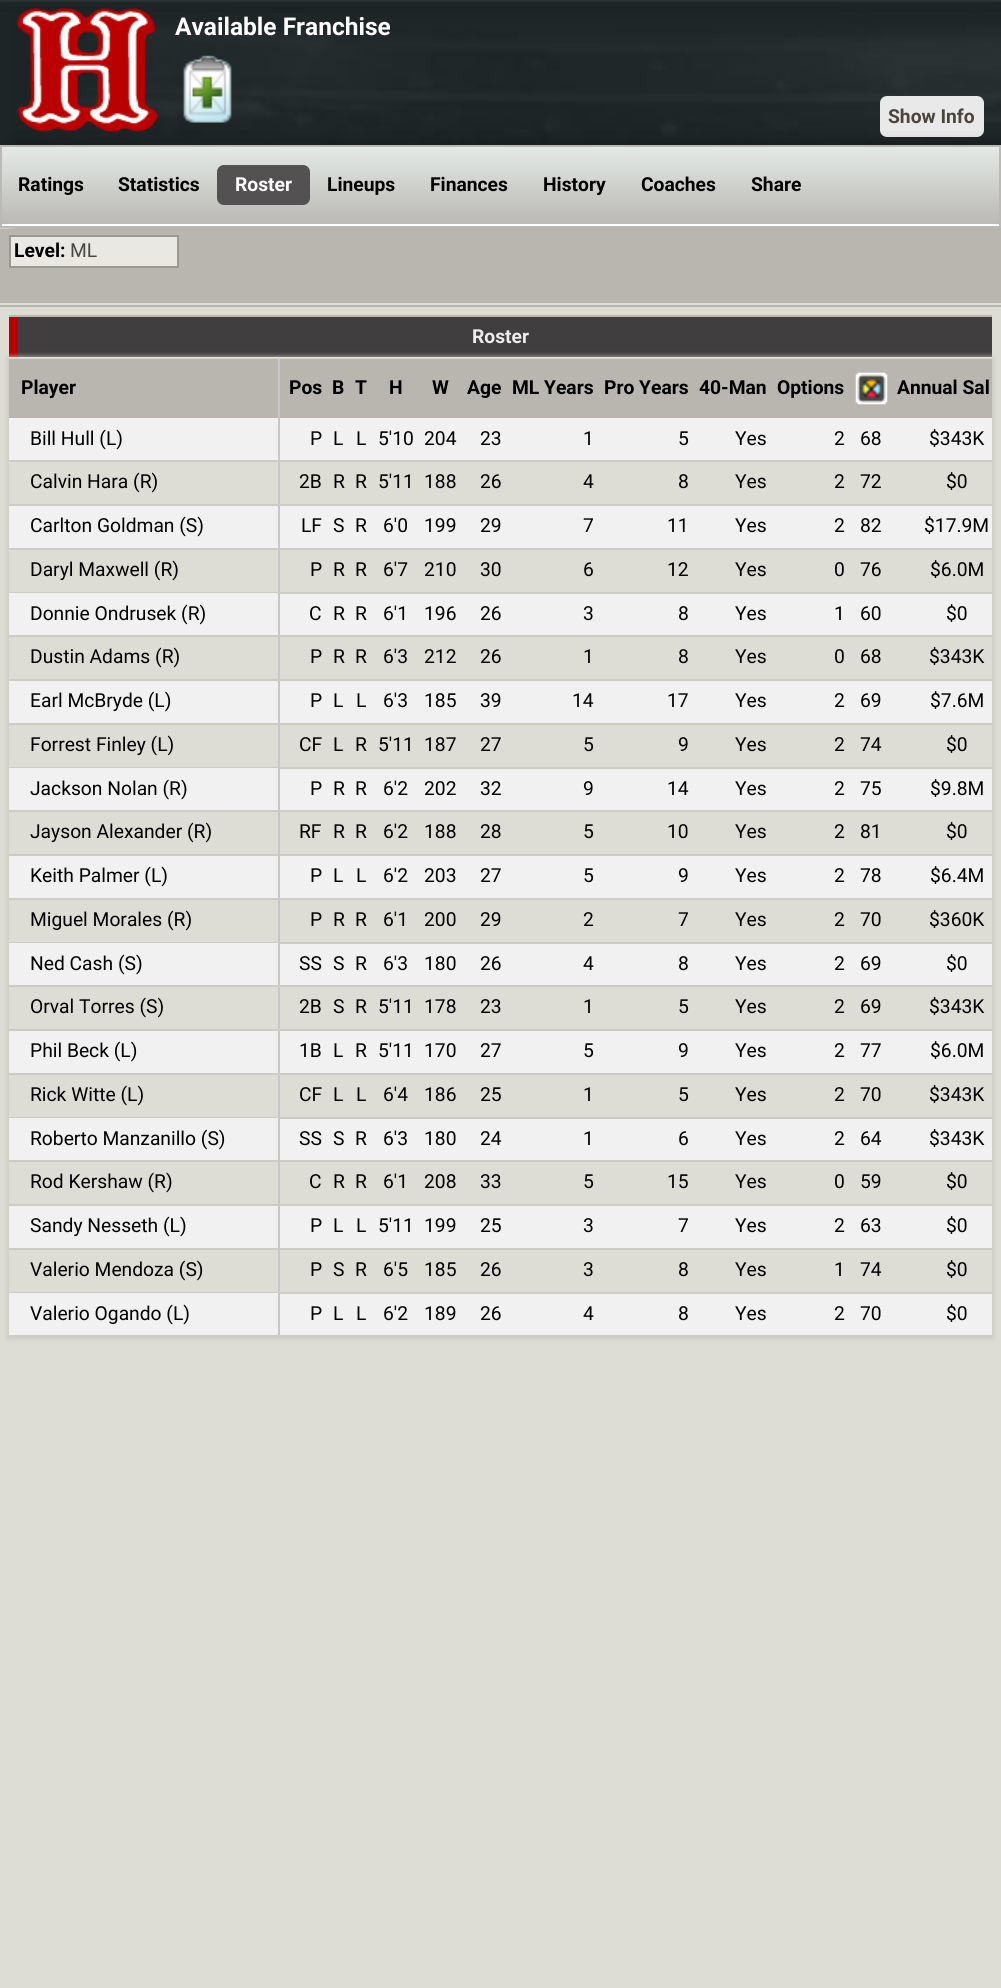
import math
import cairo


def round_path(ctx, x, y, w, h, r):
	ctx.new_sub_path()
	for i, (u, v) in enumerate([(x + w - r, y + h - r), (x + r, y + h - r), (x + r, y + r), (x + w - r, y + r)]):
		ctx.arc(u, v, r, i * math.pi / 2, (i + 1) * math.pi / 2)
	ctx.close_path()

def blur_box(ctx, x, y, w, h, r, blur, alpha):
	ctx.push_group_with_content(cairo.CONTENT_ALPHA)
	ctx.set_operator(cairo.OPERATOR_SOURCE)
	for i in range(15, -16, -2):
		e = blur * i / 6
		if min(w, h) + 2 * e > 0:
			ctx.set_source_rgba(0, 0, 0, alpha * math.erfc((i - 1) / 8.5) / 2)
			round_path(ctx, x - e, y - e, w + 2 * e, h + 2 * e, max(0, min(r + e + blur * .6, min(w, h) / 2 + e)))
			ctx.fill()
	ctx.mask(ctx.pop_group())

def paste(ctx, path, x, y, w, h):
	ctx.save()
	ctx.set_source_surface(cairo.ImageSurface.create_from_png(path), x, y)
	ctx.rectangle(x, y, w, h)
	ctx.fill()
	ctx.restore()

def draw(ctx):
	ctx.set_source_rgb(0.871, 0.867, 0.835)
	ctx.paint()
	paste(ctx, 'media/1.png', 0, 0, 1001, 145)
	paste(ctx, 'media/2.png', 17, 8, 141, 124)
	ctx.select_font_face('Roboto', cairo.FONT_SLANT_NORMAL, cairo.FONT_WEIGHT_BOLD)
	ctx.set_font_size(24.5)
	ctx.set_source_rgb(1, 1, 1)
	ctx.move_to(175, 35)
	ctx.show_text('Available Franchise')
	paste(ctx, 'media/3.png', 183, 55, 49, 68)
	ctx.set_source_rgb(0.914, 0.914, 0.914)
	round_path(ctx, 880, 96, 104, 41, 7)
	ctx.fill()
	ctx.set_font_size(19.25)
	ctx.set_source_rgb(0.286, 0.271, 0.243)
	ctx.move_to(888, 123)
	ctx.show_text('Show Info')
	ctx.set_source_rgb(0, 0, 0)
	blur_box(ctx, 14, 151, 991, 71, 0, 9, 0.75)
	gradient = cairo.LinearGradient(501, 145, 501, 224)
	gradient.add_color_stop_rgba(0, 0.898, 0.918, 0.902, 1)
	gradient.add_color_stop_rgba(1, 0.729, 0.725, 0.71, 1)
	ctx.set_source(gradient)
	ctx.rectangle(2, 147, 997, 77)
	ctx.fill()
	ctx.set_source_rgb(1, 1, 1)
	ctx.rectangle(0, 224, 1001, 2)
	ctx.fill()
	ctx.rectangle(1, 146, 999, 81)
	ctx.set_source_rgb(0.729, 0.725, 0.71)
	ctx.stroke()
	ctx.set_source_rgb(0, 0, 0)
	ctx.move_to(18, 191)
	ctx.show_text('Ratings')
	ctx.move_to(118, 191)
	ctx.show_text('Statistics')
	ctx.set_source_rgb(0.325, 0.318, 0.322)
	round_path(ctx, 217, 165, 93, 40, 7)
	ctx.fill()
	ctx.set_source_rgb(1, 1, 1)
	ctx.move_to(235, 191)
	ctx.show_text('Roster')
	ctx.set_source_rgb(0, 0, 0)
	for x, y, s in [
		(327, 191, 'Lineups'),
		(430, 191, 'Finances'),
		(543, 191, 'History'),
		(641, 191, 'Coaches'),
		(751, 191, 'Share'),
	]:
		ctx.move_to(x, y)
		ctx.show_text(s)
	ctx.set_source_rgb(0.722, 0.714, 0.686)
	ctx.rectangle(0, 305, 1001, 2)
	ctx.fill()
	ctx.rectangle(0, 229, 1001, 74)
	ctx.fill()
	ctx.set_source_rgb(0.914, 0.91, 0.89)
	ctx.rectangle(10, 236, 168, 31)
	ctx.fill_preserve()
	ctx.set_source_rgb(0.608, 0.596, 0.561)
	ctx.stroke()
	ctx.set_source_rgb(0, 0, 0)
	ctx.move_to(14, 257)
	ctx.show_text('Level:')
	ctx.select_font_face('Roboto')
	ctx.set_source_rgb(0.275, 0.275, 0.267)
	ctx.move_to(70, 257)
	ctx.show_text('ML')
	ctx.set_source_rgb(0.251, 0.243, 0.247)
	ctx.rectangle(18, 317, 974, 40)
	ctx.fill()
	ctx.set_source_rgb(0.749, 0.722, 0.675)
	ctx.rectangle(9, 315, 983, 2)
	ctx.fill()
	ctx.set_source_rgb(1, 1, 1)
	ctx.rectangle(9, 357, 983, 2)
	ctx.fill()
	ctx.set_source_rgb(0.729, 0, 0)
	ctx.rectangle(9, 317, 9, 40)
	ctx.fill()
	ctx.select_font_face('Roboto', cairo.FONT_SLANT_NORMAL, cairo.FONT_WEIGHT_BOLD)
	ctx.set_source_rgb(0.922, 0.922, 0.922)
	ctx.move_to(472, 343)
	ctx.show_text('Roster')
	ctx.save()
	ctx.set_fill_rule(cairo.FILL_RULE_EVEN_ODD)
	ctx.new_path()
	ctx.move_to(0, 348)
	ctx.line_to(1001, 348)
	ctx.line_to(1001, 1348)
	ctx.line_to(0, 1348)
	ctx.close_path()
	ctx.move_to(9, 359)
	ctx.line_to(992, 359)
	ctx.line_to(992, 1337)
	ctx.line_to(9, 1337)
	ctx.close_path()
	ctx.clip()
	ctx.set_source_rgb(0.8, 0.792, 0.761)
	blur_box(ctx, 7, 357, 987, 982, 0, 2.5, 1)
	ctx.restore()
	ctx.set_source_rgb(0.722, 0.714, 0.686)
	ctx.rectangle(280, 359, 712, 59)
	ctx.rectangle(9, 359, 269, 59)
	ctx.fill()
	ctx.set_source_rgb(0.78, 0.78, 0.78)
	ctx.rectangle(278, 359, 2, 978)
	ctx.fill()
	ctx.set_source_rgb(0, 0, 0)
	for x, y, s in [
		(21, 394, 'Player'),
		(289, 394, 'Pos'),
		(332, 394, 'B'),
		(355, 394, 'T'),
		(389, 394, 'H'),
		(432, 394, 'W'),
		(467, 394, 'Age'),
		(512, 394, 'ML Years'),
		(604, 394, 'Pro Years'),
		(699, 394, '40-Man'),
		(777, 394, 'Options'),
	]:
		ctx.move_to(x, y)
		ctx.show_text(s)
	paste(ctx, 'media/4.png', 855, 372, 33, 33)
	ctx.move_to(897, 394)
	ctx.show_text('Annual Sal')
	ctx.set_source_rgb(0.945, 0.945, 0.945)
	ctx.rectangle(280, 418, 712, 42)
	ctx.fill()
	ctx.set_source_rgb(0.8, 0.796, 0.769)
	ctx.rectangle(280, 460, 712, 2)
	ctx.fill()
	ctx.set_source_rgb(0.945, 0.945, 0.945)
	ctx.rectangle(9, 418, 269, 42)
	ctx.fill()
	ctx.set_source_rgb(0.8, 0.796, 0.769)
	ctx.rectangle(9, 460, 271, 2)
	ctx.fill()
	ctx.select_font_face('Roboto')
	ctx.set_source_rgb(0, 0, 0)
	for x, y, s in [
		(30, 445, 'Bill Hull (L)'),
		(310, 445, 'P'),
		(333, 445, 'L'),
		(356, 445, 'L'),
		(378, 445, '5\'10'),
		(424, 445, '204'),
		(480, 445, '23'),
		(583, 445, '1'),
		(678, 445, '5'),
		(735, 445, 'Yes'),
		(834, 445, '2'),
		(860, 445, '68'),
		(929, 445, '$343K'),
	]:
		ctx.move_to(x, y)
		ctx.show_text(s)
	ctx.set_source_rgb(0.8, 0.796, 0.769)
	ctx.rectangle(280, 504, 712, 2)
	ctx.fill()
	ctx.rectangle(9, 504, 271, 2)
	ctx.fill()
	ctx.set_source_rgb(0, 0, 0)
	for x, y, s in [
		(30, 488, 'Calvin Hara (R)'),
		(299, 488, '2B'),
		(333, 488, 'R'),
		(355, 488, 'R'),
		(378, 488, '5\'11'),
		(424, 488, '188'),
		(480, 488, '26'),
		(583, 488, '4'),
		(678, 488, '8'),
		(735, 488, 'Yes'),
		(834, 488, '2'),
		(860, 488, '72'),
		(946, 488, '$0'),
	]:
		ctx.move_to(x, y)
		ctx.show_text(s)
	ctx.set_source_rgb(0.945, 0.945, 0.945)
	ctx.rectangle(280, 506, 712, 42)
	ctx.fill()
	ctx.set_source_rgb(0.8, 0.796, 0.769)
	ctx.rectangle(280, 548, 712, 2)
	ctx.fill()
	ctx.set_source_rgb(0.945, 0.945, 0.945)
	ctx.rectangle(9, 506, 269, 42)
	ctx.fill()
	ctx.set_source_rgb(0.8, 0.796, 0.769)
	ctx.rectangle(9, 548, 271, 2)
	ctx.fill()
	ctx.set_source_rgb(0, 0, 0)
	for x, y, s in [
		(30, 532, 'Carlton Goldman (S)'),
		(301, 532, 'LF'),
		(333, 532, 'S'),
		(355, 532, 'R'),
		(383, 532, '6\'0'),
		(424, 532, '199'),
		(480, 532, '29'),
		(583, 532, '7'),
		(667, 532, '11'),
		(735, 532, 'Yes'),
		(834, 532, '2'),
		(860, 532, '82'),
		(924, 532, '$17.9M'),
	]:
		ctx.move_to(x, y)
		ctx.show_text(s)
	ctx.set_source_rgb(0.8, 0.796, 0.769)
	ctx.rectangle(280, 592, 712, 2)
	ctx.fill()
	ctx.rectangle(9, 592, 271, 1)
	ctx.fill()
	ctx.set_source_rgb(0, 0, 0)
	for x, y, s in [
		(30, 576, 'Daryl Maxwell (R)'),
		(310, 576, 'P'),
		(333, 576, 'R'),
		(355, 576, 'R'),
		(383, 576, '6\'7'),
		(424, 576, '210'),
		(480, 576, '30'),
		(583, 576, '6'),
		(667, 576, '12'),
		(735, 576, 'Yes'),
		(834, 576, '0'),
		(860, 576, '76'),
		(930, 576, '$6.0M'),
	]:
		ctx.move_to(x, y)
		ctx.show_text(s)
	ctx.set_source_rgb(0.945, 0.945, 0.945)
	ctx.rectangle(280, 594, 712, 41)
	ctx.fill()
	ctx.set_source_rgb(0.8, 0.796, 0.769)
	ctx.rectangle(280, 635, 712, 2)
	ctx.fill()
	ctx.set_source_rgb(0.945, 0.945, 0.945)
	ctx.rectangle(9, 593, 269, 42)
	ctx.fill()
	ctx.set_source_rgb(0.8, 0.796, 0.769)
	ctx.rectangle(9, 635, 271, 2)
	ctx.fill()
	ctx.set_source_rgb(0, 0, 0)
	for x, y, s in [
		(30, 620, 'Donnie Ondrusek (R)'),
		(309, 620, 'C'),
		(333, 620, 'R'),
		(355, 620, 'R'),
		(383, 620, '6\'1'),
		(424, 620, '196'),
		(480, 620, '26'),
		(583, 620, '3'),
		(678, 620, '8'),
		(735, 620, 'Yes'),
		(834, 620, '1'),
		(860, 620, '60'),
		(946, 620, '$0'),
	]:
		ctx.move_to(x, y)
		ctx.show_text(s)
	ctx.set_source_rgb(0.8, 0.796, 0.769)
	ctx.rectangle(280, 679, 712, 2)
	ctx.fill()
	ctx.rectangle(9, 679, 271, 2)
	ctx.fill()
	ctx.set_source_rgb(0, 0, 0)
	for x, y, s in [
		(30, 663, 'Dustin Adams (R)'),
		(310, 663, 'P'),
		(333, 663, 'R'),
		(355, 663, 'R'),
		(383, 663, '6\'3'),
		(424, 663, '212'),
		(480, 663, '26'),
		(583, 663, '1'),
		(678, 663, '8'),
		(735, 663, 'Yes'),
		(834, 663, '0'),
		(860, 663, '68'),
		(929, 663, '$343K'),
	]:
		ctx.move_to(x, y)
		ctx.show_text(s)
	ctx.set_source_rgb(0.945, 0.945, 0.945)
	ctx.rectangle(280, 681, 712, 42)
	ctx.fill()
	ctx.set_source_rgb(0.8, 0.796, 0.769)
	ctx.rectangle(280, 723, 712, 2)
	ctx.fill()
	ctx.set_source_rgb(0.945, 0.945, 0.945)
	ctx.rectangle(9, 681, 269, 42)
	ctx.fill()
	ctx.set_source_rgb(0.8, 0.796, 0.769)
	ctx.rectangle(9, 723, 271, 2)
	ctx.fill()
	ctx.set_source_rgb(0, 0, 0)
	for x, y, s in [
		(30, 707, 'Earl McBryde (L)'),
		(310, 707, 'P'),
		(333, 707, 'L'),
		(356, 707, 'L'),
		(383, 707, '6\'3'),
		(424, 707, '185'),
		(480, 707, '39'),
		(572, 707, '14'),
		(667, 707, '17'),
		(735, 707, 'Yes'),
		(834, 707, '2'),
		(860, 707, '69'),
		(930, 707, '$7.6M'),
	]:
		ctx.move_to(x, y)
		ctx.show_text(s)
	ctx.set_source_rgb(0.8, 0.796, 0.769)
	ctx.rectangle(280, 767, 712, 2)
	ctx.fill()
	ctx.rectangle(9, 767, 271, 1)
	ctx.fill()
	ctx.set_source_rgb(0, 0, 0)
	for x, y, s in [
		(30, 751, 'Forrest Finley (L)'),
		(299, 751, 'CF'),
		(333, 751, 'L'),
		(355, 751, 'R'),
		(378, 751, '5\'11'),
		(424, 751, '187'),
		(480, 751, '27'),
		(583, 751, '5'),
		(678, 751, '9'),
		(735, 751, 'Yes'),
		(834, 751, '2'),
		(860, 751, '74'),
		(946, 751, '$0'),
	]:
		ctx.move_to(x, y)
		ctx.show_text(s)
	ctx.set_source_rgb(0.945, 0.945, 0.945)
	ctx.rectangle(280, 769, 712, 41)
	ctx.fill()
	ctx.set_source_rgb(0.8, 0.796, 0.769)
	ctx.rectangle(280, 810, 712, 2)
	ctx.fill()
	ctx.set_source_rgb(0.945, 0.945, 0.945)
	ctx.rectangle(9, 768, 269, 42)
	ctx.fill()
	ctx.set_source_rgb(0.8, 0.796, 0.769)
	ctx.rectangle(9, 810, 271, 2)
	ctx.fill()
	ctx.set_source_rgb(0, 0, 0)
	for x, y, s in [
		(30, 795, 'Jackson Nolan (R)'),
		(310, 795, 'P'),
		(333, 795, 'R'),
		(355, 795, 'R'),
		(383, 795, '6\'2'),
		(424, 795, '202'),
		(480, 795, '32'),
		(583, 795, '9'),
		(667, 795, '14'),
		(735, 795, 'Yes'),
		(834, 795, '2'),
		(860, 795, '75'),
		(930, 795, '$9.8M'),
	]:
		ctx.move_to(x, y)
		ctx.show_text(s)
	ctx.set_source_rgb(0.8, 0.796, 0.769)
	ctx.rectangle(280, 854, 712, 2)
	ctx.fill()
	ctx.rectangle(9, 854, 271, 2)
	ctx.fill()
	ctx.set_source_rgb(0, 0, 0)
	for x, y, s in [
		(30, 838, 'Jayson Alexander (R)'),
		(299, 838, 'RF'),
		(333, 838, 'R'),
		(355, 838, 'R'),
		(383, 838, '6\'2'),
		(424, 838, '188'),
		(480, 838, '28'),
		(583, 838, '5'),
		(667, 838, '10'),
		(735, 838, 'Yes'),
		(834, 838, '2'),
		(860, 838, '81'),
		(946, 838, '$0'),
	]:
		ctx.move_to(x, y)
		ctx.show_text(s)
	ctx.set_source_rgb(0.945, 0.945, 0.945)
	ctx.rectangle(280, 856, 712, 42)
	ctx.fill()
	ctx.set_source_rgb(0.8, 0.796, 0.769)
	ctx.rectangle(280, 898, 712, 2)
	ctx.fill()
	ctx.set_source_rgb(0.945, 0.945, 0.945)
	ctx.rectangle(9, 856, 269, 42)
	ctx.fill()
	ctx.set_source_rgb(0.8, 0.796, 0.769)
	ctx.rectangle(9, 898, 271, 2)
	ctx.fill()
	ctx.set_source_rgb(0, 0, 0)
	for x, y, s in [
		(30, 882, 'Keith Palmer (L)'),
		(310, 882, 'P'),
		(333, 882, 'L'),
		(356, 882, 'L'),
		(383, 882, '6\'2'),
		(424, 882, '203'),
		(480, 882, '27'),
		(583, 882, '5'),
		(678, 882, '9'),
		(735, 882, 'Yes'),
		(834, 882, '2'),
		(860, 882, '78'),
		(930, 882, '$6.4M'),
	]:
		ctx.move_to(x, y)
		ctx.show_text(s)
	ctx.set_source_rgb(0.8, 0.796, 0.769)
	ctx.rectangle(280, 942, 712, 2)
	ctx.fill()
	ctx.rectangle(9, 942, 271, 1)
	ctx.fill()
	ctx.set_source_rgb(0, 0, 0)
	for x, y, s in [
		(30, 926, 'Miguel Morales (R)'),
		(310, 926, 'P'),
		(333, 926, 'R'),
		(355, 926, 'R'),
		(383, 926, '6\'1'),
		(424, 926, '200'),
		(480, 926, '29'),
		(583, 926, '2'),
		(678, 926, '7'),
		(735, 926, 'Yes'),
		(834, 926, '2'),
		(860, 926, '70'),
		(929, 926, '$360K'),
	]:
		ctx.move_to(x, y)
		ctx.show_text(s)
	ctx.set_source_rgb(0.945, 0.945, 0.945)
	ctx.rectangle(280, 944, 712, 41)
	ctx.fill()
	ctx.set_source_rgb(0.8, 0.796, 0.769)
	ctx.rectangle(280, 985, 712, 2)
	ctx.fill()
	ctx.set_source_rgb(0.945, 0.945, 0.945)
	ctx.rectangle(9, 943, 269, 42)
	ctx.fill()
	ctx.set_source_rgb(0.8, 0.796, 0.769)
	ctx.rectangle(9, 985, 271, 2)
	ctx.fill()
	ctx.set_source_rgb(0, 0, 0)
	for x, y, s in [
		(30, 970, 'Ned Cash (S)'),
		(299, 970, 'SS'),
		(333, 970, 'S'),
		(355, 970, 'R'),
		(383, 970, '6\'3'),
		(424, 970, '180'),
		(480, 970, '26'),
		(583, 970, '4'),
		(678, 970, '8'),
		(735, 970, 'Yes'),
		(834, 970, '2'),
		(860, 970, '69'),
		(946, 970, '$0'),
	]:
		ctx.move_to(x, y)
		ctx.show_text(s)
	ctx.set_source_rgb(0.8, 0.796, 0.769)
	ctx.rectangle(280, 1029, 712, 2)
	ctx.fill()
	ctx.rectangle(9, 1029, 271, 2)
	ctx.fill()
	ctx.set_source_rgb(0, 0, 0)
	for x, y, s in [
		(30, 1013, 'Orval Torres (S)'),
		(299, 1013, '2B'),
		(333, 1013, 'S'),
		(355, 1013, 'R'),
		(378, 1013, '5\'11'),
		(424, 1013, '178'),
		(480, 1013, '23'),
		(583, 1013, '1'),
		(678, 1013, '5'),
		(735, 1013, 'Yes'),
		(834, 1013, '2'),
		(860, 1013, '69'),
		(929, 1013, '$343K'),
	]:
		ctx.move_to(x, y)
		ctx.show_text(s)
	ctx.set_source_rgb(0.945, 0.945, 0.945)
	ctx.rectangle(280, 1031, 712, 42)
	ctx.fill()
	ctx.set_source_rgb(0.8, 0.796, 0.769)
	ctx.rectangle(280, 1073, 712, 2)
	ctx.fill()
	ctx.set_source_rgb(0.945, 0.945, 0.945)
	ctx.rectangle(9, 1031, 269, 42)
	ctx.fill()
	ctx.set_source_rgb(0.8, 0.796, 0.769)
	ctx.rectangle(9, 1073, 271, 2)
	ctx.fill()
	ctx.set_source_rgb(0, 0, 0)
	for x, y, s in [
		(30, 1057, 'Phil Beck (L)'),
		(299, 1057, '1B'),
		(333, 1057, 'L'),
		(355, 1057, 'R'),
		(378, 1057, '5\'11'),
		(424, 1057, '170'),
		(480, 1057, '27'),
		(583, 1057, '5'),
		(678, 1057, '9'),
		(735, 1057, 'Yes'),
		(834, 1057, '2'),
		(860, 1057, '77'),
		(930, 1057, '$6.0M'),
	]:
		ctx.move_to(x, y)
		ctx.show_text(s)
	ctx.set_source_rgb(0.8, 0.796, 0.769)
	ctx.rectangle(280, 1117, 712, 2)
	ctx.fill()
	ctx.rectangle(9, 1117, 271, 1)
	ctx.fill()
	ctx.set_source_rgb(0, 0, 0)
	for x, y, s in [
		(30, 1101, 'Rick Witte (L)'),
		(299, 1101, 'CF'),
		(333, 1101, 'L'),
		(356, 1101, 'L'),
		(383, 1101, '6\'4'),
		(424, 1101, '186'),
		(480, 1101, '25'),
		(583, 1101, '1'),
		(678, 1101, '5'),
		(735, 1101, 'Yes'),
		(834, 1101, '2'),
		(860, 1101, '70'),
		(929, 1101, '$343K'),
	]:
		ctx.move_to(x, y)
		ctx.show_text(s)
	ctx.set_source_rgb(0.945, 0.945, 0.945)
	ctx.rectangle(280, 1119, 712, 41)
	ctx.fill()
	ctx.set_source_rgb(0.8, 0.796, 0.769)
	ctx.rectangle(280, 1160, 712, 2)
	ctx.fill()
	ctx.set_source_rgb(0.945, 0.945, 0.945)
	ctx.rectangle(9, 1118, 269, 42)
	ctx.fill()
	ctx.set_source_rgb(0.8, 0.796, 0.769)
	ctx.rectangle(9, 1160, 271, 2)
	ctx.fill()
	ctx.set_source_rgb(0, 0, 0)
	for x, y, s in [
		(30, 1145, 'Roberto Manzanillo (S)'),
		(299, 1145, 'SS'),
		(333, 1145, 'S'),
		(355, 1145, 'R'),
		(383, 1145, '6\'3'),
		(424, 1145, '180'),
		(480, 1145, '24'),
		(583, 1145, '1'),
		(678, 1145, '6'),
		(735, 1145, 'Yes'),
		(834, 1145, '2'),
		(860, 1145, '64'),
		(929, 1145, '$343K'),
	]:
		ctx.move_to(x, y)
		ctx.show_text(s)
	ctx.set_source_rgb(0.8, 0.796, 0.769)
	ctx.rectangle(280, 1204, 712, 2)
	ctx.fill()
	ctx.rectangle(9, 1204, 271, 2)
	ctx.fill()
	ctx.set_source_rgb(0, 0, 0)
	for x, y, s in [
		(30, 1188, 'Rod Kershaw (R)'),
		(309, 1188, 'C'),
		(333, 1188, 'R'),
		(355, 1188, 'R'),
		(383, 1188, '6\'1'),
		(424, 1188, '208'),
		(480, 1188, '33'),
		(583, 1188, '5'),
		(667, 1188, '15'),
		(735, 1188, 'Yes'),
		(834, 1188, '0'),
		(860, 1188, '59'),
		(946, 1188, '$0'),
	]:
		ctx.move_to(x, y)
		ctx.show_text(s)
	ctx.set_source_rgb(0.945, 0.945, 0.945)
	ctx.rectangle(280, 1206, 712, 42)
	ctx.fill()
	ctx.set_source_rgb(0.8, 0.796, 0.769)
	ctx.rectangle(280, 1248, 712, 2)
	ctx.fill()
	ctx.set_source_rgb(0.945, 0.945, 0.945)
	ctx.rectangle(9, 1206, 269, 42)
	ctx.fill()
	ctx.set_source_rgb(0.8, 0.796, 0.769)
	ctx.rectangle(9, 1248, 271, 2)
	ctx.fill()
	ctx.set_source_rgb(0, 0, 0)
	for x, y, s in [
		(30, 1232, 'Sandy Nesseth (L)'),
		(310, 1232, 'P'),
		(333, 1232, 'L'),
		(356, 1232, 'L'),
		(378, 1232, '5\'11'),
		(424, 1232, '199'),
		(480, 1232, '25'),
		(583, 1232, '3'),
		(678, 1232, '7'),
		(735, 1232, 'Yes'),
		(834, 1232, '2'),
		(860, 1232, '63'),
		(946, 1232, '$0'),
	]:
		ctx.move_to(x, y)
		ctx.show_text(s)
	ctx.set_source_rgb(0.8, 0.796, 0.769)
	ctx.rectangle(280, 1292, 712, 2)
	ctx.fill()
	ctx.rectangle(9, 1292, 271, 1)
	ctx.fill()
	ctx.set_source_rgb(0, 0, 0)
	for x, y, s in [
		(30, 1276, 'Valerio Mendoza (S)'),
		(310, 1276, 'P'),
		(333, 1276, 'S'),
		(355, 1276, 'R'),
		(383, 1276, '6\'5'),
		(424, 1276, '185'),
		(480, 1276, '26'),
		(583, 1276, '3'),
		(678, 1276, '8'),
		(735, 1276, 'Yes'),
		(834, 1276, '1'),
		(860, 1276, '74'),
		(946, 1276, '$0'),
	]:
		ctx.move_to(x, y)
		ctx.show_text(s)
	ctx.set_source_rgb(0.945, 0.945, 0.945)
	ctx.rectangle(280, 1294, 712, 41)
	ctx.fill()
	ctx.set_source_rgb(0.8, 0.796, 0.769)
	ctx.rectangle(280, 1335, 712, 2)
	ctx.fill()
	ctx.set_source_rgb(0.945, 0.945, 0.945)
	ctx.rectangle(9, 1293, 269, 42)
	ctx.fill()
	ctx.set_source_rgb(0.8, 0.796, 0.769)
	ctx.rectangle(9, 1335, 271, 2)
	ctx.fill()
	ctx.set_source_rgb(0, 0, 0)
	for x, y, s in [
		(30, 1320, 'Valerio Ogando (L)'),
		(310, 1320, 'P'),
		(333, 1320, 'L'),
		(356, 1320, 'L'),
		(383, 1320, '6\'2'),
		(424, 1320, '189'),
		(480, 1320, '26'),
		(583, 1320, '4'),
		(678, 1320, '8'),
		(735, 1320, 'Yes'),
		(834, 1320, '2'),
		(860, 1320, '70'),
		(946, 1320, '$0'),
	]:
		ctx.move_to(x, y)
		ctx.show_text(s)


surface = cairo.ImageSurface(cairo.FORMAT_RGB24, 1001, 1988)
ctx = cairo.Context(surface)
options = cairo.FontOptions()
options.set_hint_metrics(cairo.HINT_METRICS_OFF)
options.set_hint_style(cairo.HINT_STYLE_NONE)
ctx.set_font_options(options)
ctx.set_miter_limit(4)
draw(ctx)
surface.write_to_png('image.png')
